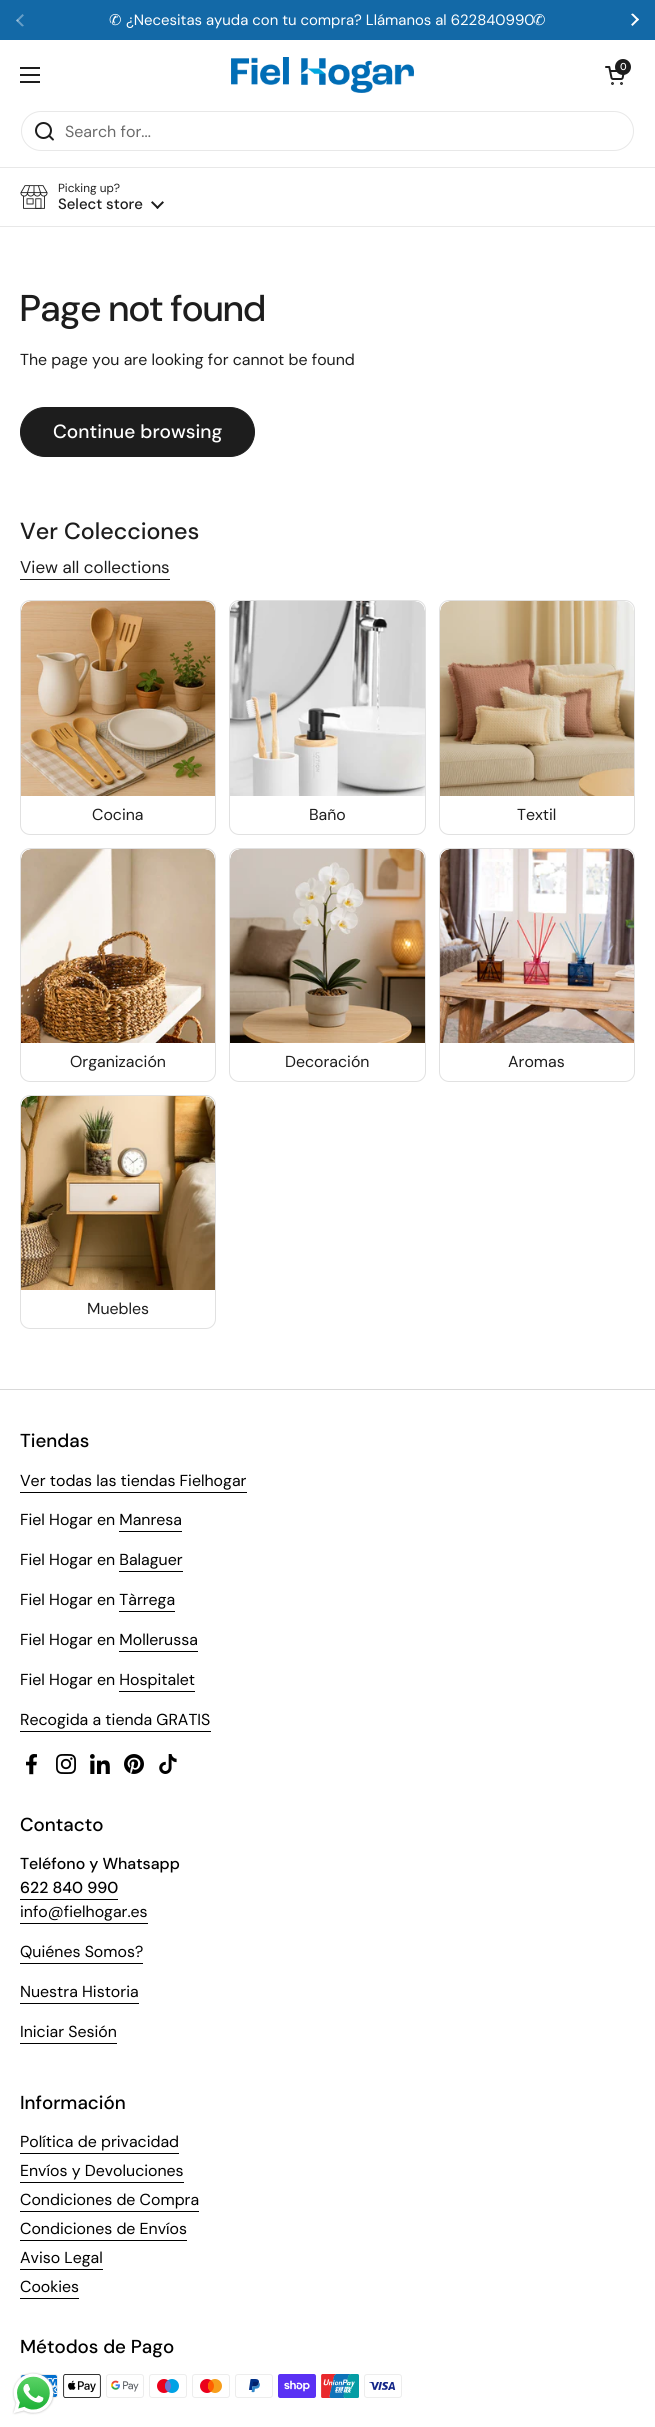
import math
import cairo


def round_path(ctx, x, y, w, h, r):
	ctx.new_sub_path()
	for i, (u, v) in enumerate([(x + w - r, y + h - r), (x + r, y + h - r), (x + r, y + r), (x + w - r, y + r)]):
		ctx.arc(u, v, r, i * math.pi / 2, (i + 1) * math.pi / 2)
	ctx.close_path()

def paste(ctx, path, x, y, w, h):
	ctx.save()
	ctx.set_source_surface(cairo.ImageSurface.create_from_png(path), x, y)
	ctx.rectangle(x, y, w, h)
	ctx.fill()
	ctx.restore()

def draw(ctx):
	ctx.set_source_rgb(1, 1, 1)
	ctx.paint()
	ctx.set_source_rgb(0.075, 0.412, 0.655)
	ctx.rectangle(0, 0, 655, 40)
	ctx.fill()
	paste(ctx, 'media/1.png', 16, 14, 8, 13)
	ctx.select_font_face('DejaVu Sans')
	ctx.set_font_size(14.9)
	ctx.set_source_rgb(1, 1, 1)
	ctx.move_to(109, 25)
	ctx.show_text('✆')
	ctx.select_font_face('DM Sans')
	ctx.move_to(126, 25)
	ctx.show_text('¿Necesitas ayuda con tu compra? Llámanos al 622840990')
	ctx.select_font_face('DejaVu Sans')
	ctx.move_to(533, 25)
	ctx.show_text('✆')
	paste(ctx, 'media/2.png', 631, 13, 8, 13)
	ctx.set_source_rgb(0.114, 0.114, 0.114)
	ctx.rectangle(20, 67, 20, 2)
	ctx.rectangle(20, 74, 20, 2)
	ctx.rectangle(20, 81, 20, 2)
	ctx.fill()
	paste(ctx, 'media/3.png', 231, 57, 183, 36)
	paste(ctx, 'media/4.png', 605, 66, 20, 19)
	ctx.arc(623, 67, 8, 0, 2 * math.pi)
	ctx.fill()
	ctx.select_font_face('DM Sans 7 Medium')
	ctx.set_font_size(10)
	ctx.set_source_rgb(1, 1, 1)
	ctx.move_to(620, 70)
	ctx.show_text('0')
	ctx.set_source_rgb(0.91, 0.91, 0.91)
	ctx.rectangle(0, 167, 655, 1)
	ctx.fill()
	round_path(ctx, 21.5, 111.5, 612, 39, 19.5)
	ctx.set_line_width(1)
	ctx.stroke()
	paste(ctx, 'media/5.png', 35, 122, 19, 19)
	ctx.select_font_face('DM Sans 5')
	ctx.set_font_size(16)
	ctx.set_source_rgb(0.416, 0.416, 0.416)
	ctx.move_to(65, 137)
	ctx.show_text('Search for...')
	ctx.set_source_rgb(0.91, 0.91, 0.91)
	ctx.rectangle(0, 226, 655, 1)
	ctx.fill()
	paste(ctx, 'media/6.png', 20, 185, 28, 24)
	ctx.select_font_face('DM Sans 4')
	ctx.set_font_size(11.75)
	ctx.set_source_rgb(0.114, 0.114, 0.114)
	ctx.move_to(58, 192)
	ctx.show_text('Picking up?')
	ctx.select_font_face('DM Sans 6 Medium')
	ctx.set_font_size(14.9)
	ctx.move_to(58, 209)
	ctx.show_text('Select store')
	paste(ctx, 'media/7.png', 151, 201, 13, 8)
	ctx.select_font_face('DM Sans Medium')
	ctx.set_font_size(37.25)
	ctx.move_to(20, 321)
	ctx.show_text('Page not found')
	ctx.select_font_face('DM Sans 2')
	ctx.set_font_size(15.9)
	ctx.move_to(20, 365)
	ctx.show_text('The page you are looking for cannot be found')
	round_path(ctx, 20.5, 407.5, 234, 49, 24.5)
	ctx.fill_preserve()
	ctx.stroke()
	ctx.select_font_face('DM Sans 2 Medium')
	ctx.set_font_size(19.1)
	ctx.set_source_rgb(1, 1, 1)
	ctx.move_to(53, 438)
	ctx.show_text('Continue browsing')
	ctx.select_font_face('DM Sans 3 Medium')
	ctx.set_font_size(23.25)
	ctx.set_source_rgb(0.114, 0.114, 0.114)
	ctx.move_to(20, 539)
	ctx.show_text('Ver Colecciones')
	ctx.select_font_face('DM Sans 3')
	ctx.set_font_size(17)
	ctx.move_to(20, 573)
	ctx.show_text('View all collections')
	ctx.rectangle(20, 579, 150, 1)
	ctx.fill()
	round_path(ctx, 20.5, 600.5, 195, 234, 9.5)
	ctx.set_source_rgb(0.882, 0.882, 0.882)
	ctx.stroke()
	paste(ctx, 'media/8.png', 21, 601, 194, 195)
	ctx.select_font_face('DM Sans 2')
	ctx.set_font_size(15.9)
	ctx.set_source_rgb(0.114, 0.114, 0.114)
	ctx.move_to(92, 820)
	ctx.show_text('Cocina')
	round_path(ctx, 229.5, 600.5, 196, 234, 9.5)
	ctx.set_source_rgb(0.882, 0.882, 0.882)
	ctx.stroke()
	paste(ctx, 'media/9.png', 230, 601, 195, 195)
	ctx.set_source_rgb(0.114, 0.114, 0.114)
	ctx.move_to(309, 820)
	ctx.show_text('Baño')
	round_path(ctx, 439.5, 600.5, 195, 234, 9.5)
	ctx.set_source_rgb(0.882, 0.882, 0.882)
	ctx.stroke()
	paste(ctx, 'media/10.png', 440, 601, 194, 195)
	ctx.set_source_rgb(0.114, 0.114, 0.114)
	ctx.move_to(517, 820)
	ctx.show_text('Textil')
	round_path(ctx, 20.5, 848.5, 195, 233, 9.5)
	ctx.set_source_rgb(0.882, 0.882, 0.882)
	ctx.stroke()
	paste(ctx, 'media/11.png', 21, 849, 194, 194)
	ctx.set_source_rgb(0.114, 0.114, 0.114)
	ctx.move_to(70, 1067)
	ctx.show_text('Organización')
	round_path(ctx, 229.5, 848.5, 196, 233, 9.5)
	ctx.set_source_rgb(0.882, 0.882, 0.882)
	ctx.stroke()
	paste(ctx, 'media/12.png', 230, 849, 195, 194)
	ctx.set_source_rgb(0.114, 0.114, 0.114)
	ctx.move_to(285, 1067)
	ctx.show_text('Decoración')
	round_path(ctx, 439.5, 848.5, 195, 233, 9.5)
	ctx.set_source_rgb(0.882, 0.882, 0.882)
	ctx.stroke()
	paste(ctx, 'media/13.png', 440, 849, 194, 194)
	ctx.set_source_rgb(0.114, 0.114, 0.114)
	ctx.move_to(508, 1067)
	ctx.show_text('Aromas')
	round_path(ctx, 20.5, 1095.5, 195, 233, 9.5)
	ctx.set_source_rgb(0.882, 0.882, 0.882)
	ctx.stroke()
	paste(ctx, 'media/14.png', 21, 1096, 194, 194)
	ctx.set_source_rgb(0.114, 0.114, 0.114)
	ctx.move_to(87, 1314)
	ctx.show_text('Muebles')
	ctx.set_source_rgb(0.851, 0.851, 0.851)
	ctx.rectangle(0, 1389, 655, 1)
	ctx.fill()
	ctx.select_font_face('DM Sans 4 Medium')
	ctx.set_font_size(18.75)
	ctx.set_source_rgb(0, 0, 0)
	ctx.move_to(20, 1447)
	ctx.show_text('Tiendas')
	ctx.select_font_face('DM Sans 2')
	ctx.set_font_size(15.9)
	ctx.move_to(20, 1486)
	ctx.show_text('Ver todas las tiendas Fielhogar')
	ctx.rectangle(20, 1492, 227, 1)
	ctx.fill()
	ctx.move_to(20, 1525)
	ctx.show_text('Fiel Hogar en Manresa')
	ctx.rectangle(119, 1531, 63, 1)
	ctx.fill()
	ctx.move_to(20, 1565)
	ctx.show_text('Fiel Hogar en Balaguer')
	ctx.rectangle(119, 1571, 64, 1)
	ctx.fill()
	ctx.move_to(20, 1605)
	ctx.show_text('Fiel Hogar en Tàrrega')
	ctx.rectangle(119, 1611, 56, 1)
	ctx.fill()
	ctx.move_to(20, 1645)
	ctx.show_text('Fiel Hogar en Mollerussa')
	ctx.rectangle(119, 1651, 79, 1)
	ctx.fill()
	ctx.move_to(20, 1685)
	ctx.show_text('Fiel Hogar en Hospitalet')
	ctx.rectangle(119, 1691, 76, 1)
	ctx.fill()
	ctx.move_to(20, 1725)
	ctx.show_text('Recogida a tienda GRATIS')
	ctx.rectangle(20, 1731, 191, 1)
	ctx.fill()
	paste(ctx, 'media/15.png', 26, 1754, 11, 21)
	paste(ctx, 'media/16.png', 56, 1754, 20, 20)
	paste(ctx, 'media/17.png', 90, 1754, 20, 20)
	paste(ctx, 'media/18.png', 124, 1754, 20, 20)
	paste(ctx, 'media/19.png', 159, 1754, 18, 20)
	ctx.select_font_face('DM Sans 4 Medium')
	ctx.set_font_size(18.75)
	ctx.move_to(20, 1831)
	ctx.show_text('Contacto')
	ctx.select_font_face('DM Sans 5 Medium')
	ctx.set_font_size(15.9)
	ctx.move_to(20, 1869)
	ctx.show_text('Teléfono y Whatsapp')
	ctx.move_to(20, 1893)
	ctx.show_text('622 840 990')
	ctx.rectangle(20, 1899, 98, 1)
	ctx.fill()
	ctx.select_font_face('DM Sans 2')
	ctx.move_to(20, 1917)
	ctx.show_text('info@fielhogar.es')
	ctx.rectangle(20, 1923, 128, 1)
	ctx.fill()
	ctx.move_to(20, 1957)
	ctx.show_text('Quiénes Somos?')
	ctx.rectangle(20, 1963, 123, 1)
	ctx.fill()
	ctx.move_to(20, 1997)
	ctx.show_text('Nuestra Historia')
	ctx.rectangle(20, 2003, 119, 1)
	ctx.fill()
	ctx.move_to(20, 2037)
	ctx.show_text('Iniciar Sesión')
	ctx.rectangle(20, 2043, 97, 1)
	ctx.fill()
	ctx.select_font_face('DM Sans 4 Medium')
	ctx.set_font_size(18.75)
	ctx.move_to(20, 2109)
	ctx.show_text('Información')
	ctx.select_font_face('DM Sans 2')
	ctx.set_font_size(15.9)
	ctx.move_to(20, 2147)
	ctx.show_text('Política de privacidad')
	ctx.rectangle(20, 2153, 159, 1)
	ctx.fill()
	ctx.move_to(20, 2176)
	ctx.show_text('Envíos y Devoluciones')
	ctx.rectangle(20, 2182, 164, 1)
	ctx.fill()
	ctx.move_to(20, 2205)
	ctx.show_text('Condiciones de Compra')
	ctx.rectangle(20, 2211, 179, 1)
	ctx.fill()
	ctx.move_to(20, 2234)
	ctx.show_text('Condiciones de Envíos')
	ctx.rectangle(20, 2240, 167, 1)
	ctx.fill()
	ctx.move_to(20, 2263)
	ctx.show_text('Aviso Legal')
	ctx.rectangle(20, 2269, 83, 1)
	ctx.fill()
	ctx.move_to(20, 2292)
	ctx.show_text('Cookies')
	ctx.rectangle(20, 2298, 59, 1)
	ctx.fill()
	ctx.select_font_face('DM Sans 4 Medium')
	ctx.set_font_size(18.75)
	ctx.move_to(20, 2353)
	ctx.show_text('Métodos de Pago')
	paste(ctx, 'media/20.png', 20, 2374, 38, 24)
	paste(ctx, 'media/21.png', 63, 2374, 38, 24)
	paste(ctx, 'media/22.png', 106, 2374, 38, 24)
	paste(ctx, 'media/23.png', 149, 2374, 38, 24)
	paste(ctx, 'media/24.png', 192, 2374, 38, 24)
	paste(ctx, 'media/25.png', 235, 2374, 38, 24)
	paste(ctx, 'media/26.png', 278, 2374, 38, 24)
	paste(ctx, 'media/27.png', 321, 2374, 38, 24)
	paste(ctx, 'media/28.png', 364, 2374, 38, 24)
	paste(ctx, 'media/29.png', 12, 2372, 43, 43)


surface = cairo.ImageSurface(cairo.FORMAT_RGB24, 655, 2427)
ctx = cairo.Context(surface)
options = cairo.FontOptions()
options.set_hint_metrics(cairo.HINT_METRICS_OFF)
options.set_hint_style(cairo.HINT_STYLE_NONE)
ctx.set_font_options(options)
ctx.set_miter_limit(4)
draw(ctx)
surface.write_to_png('image.png')
